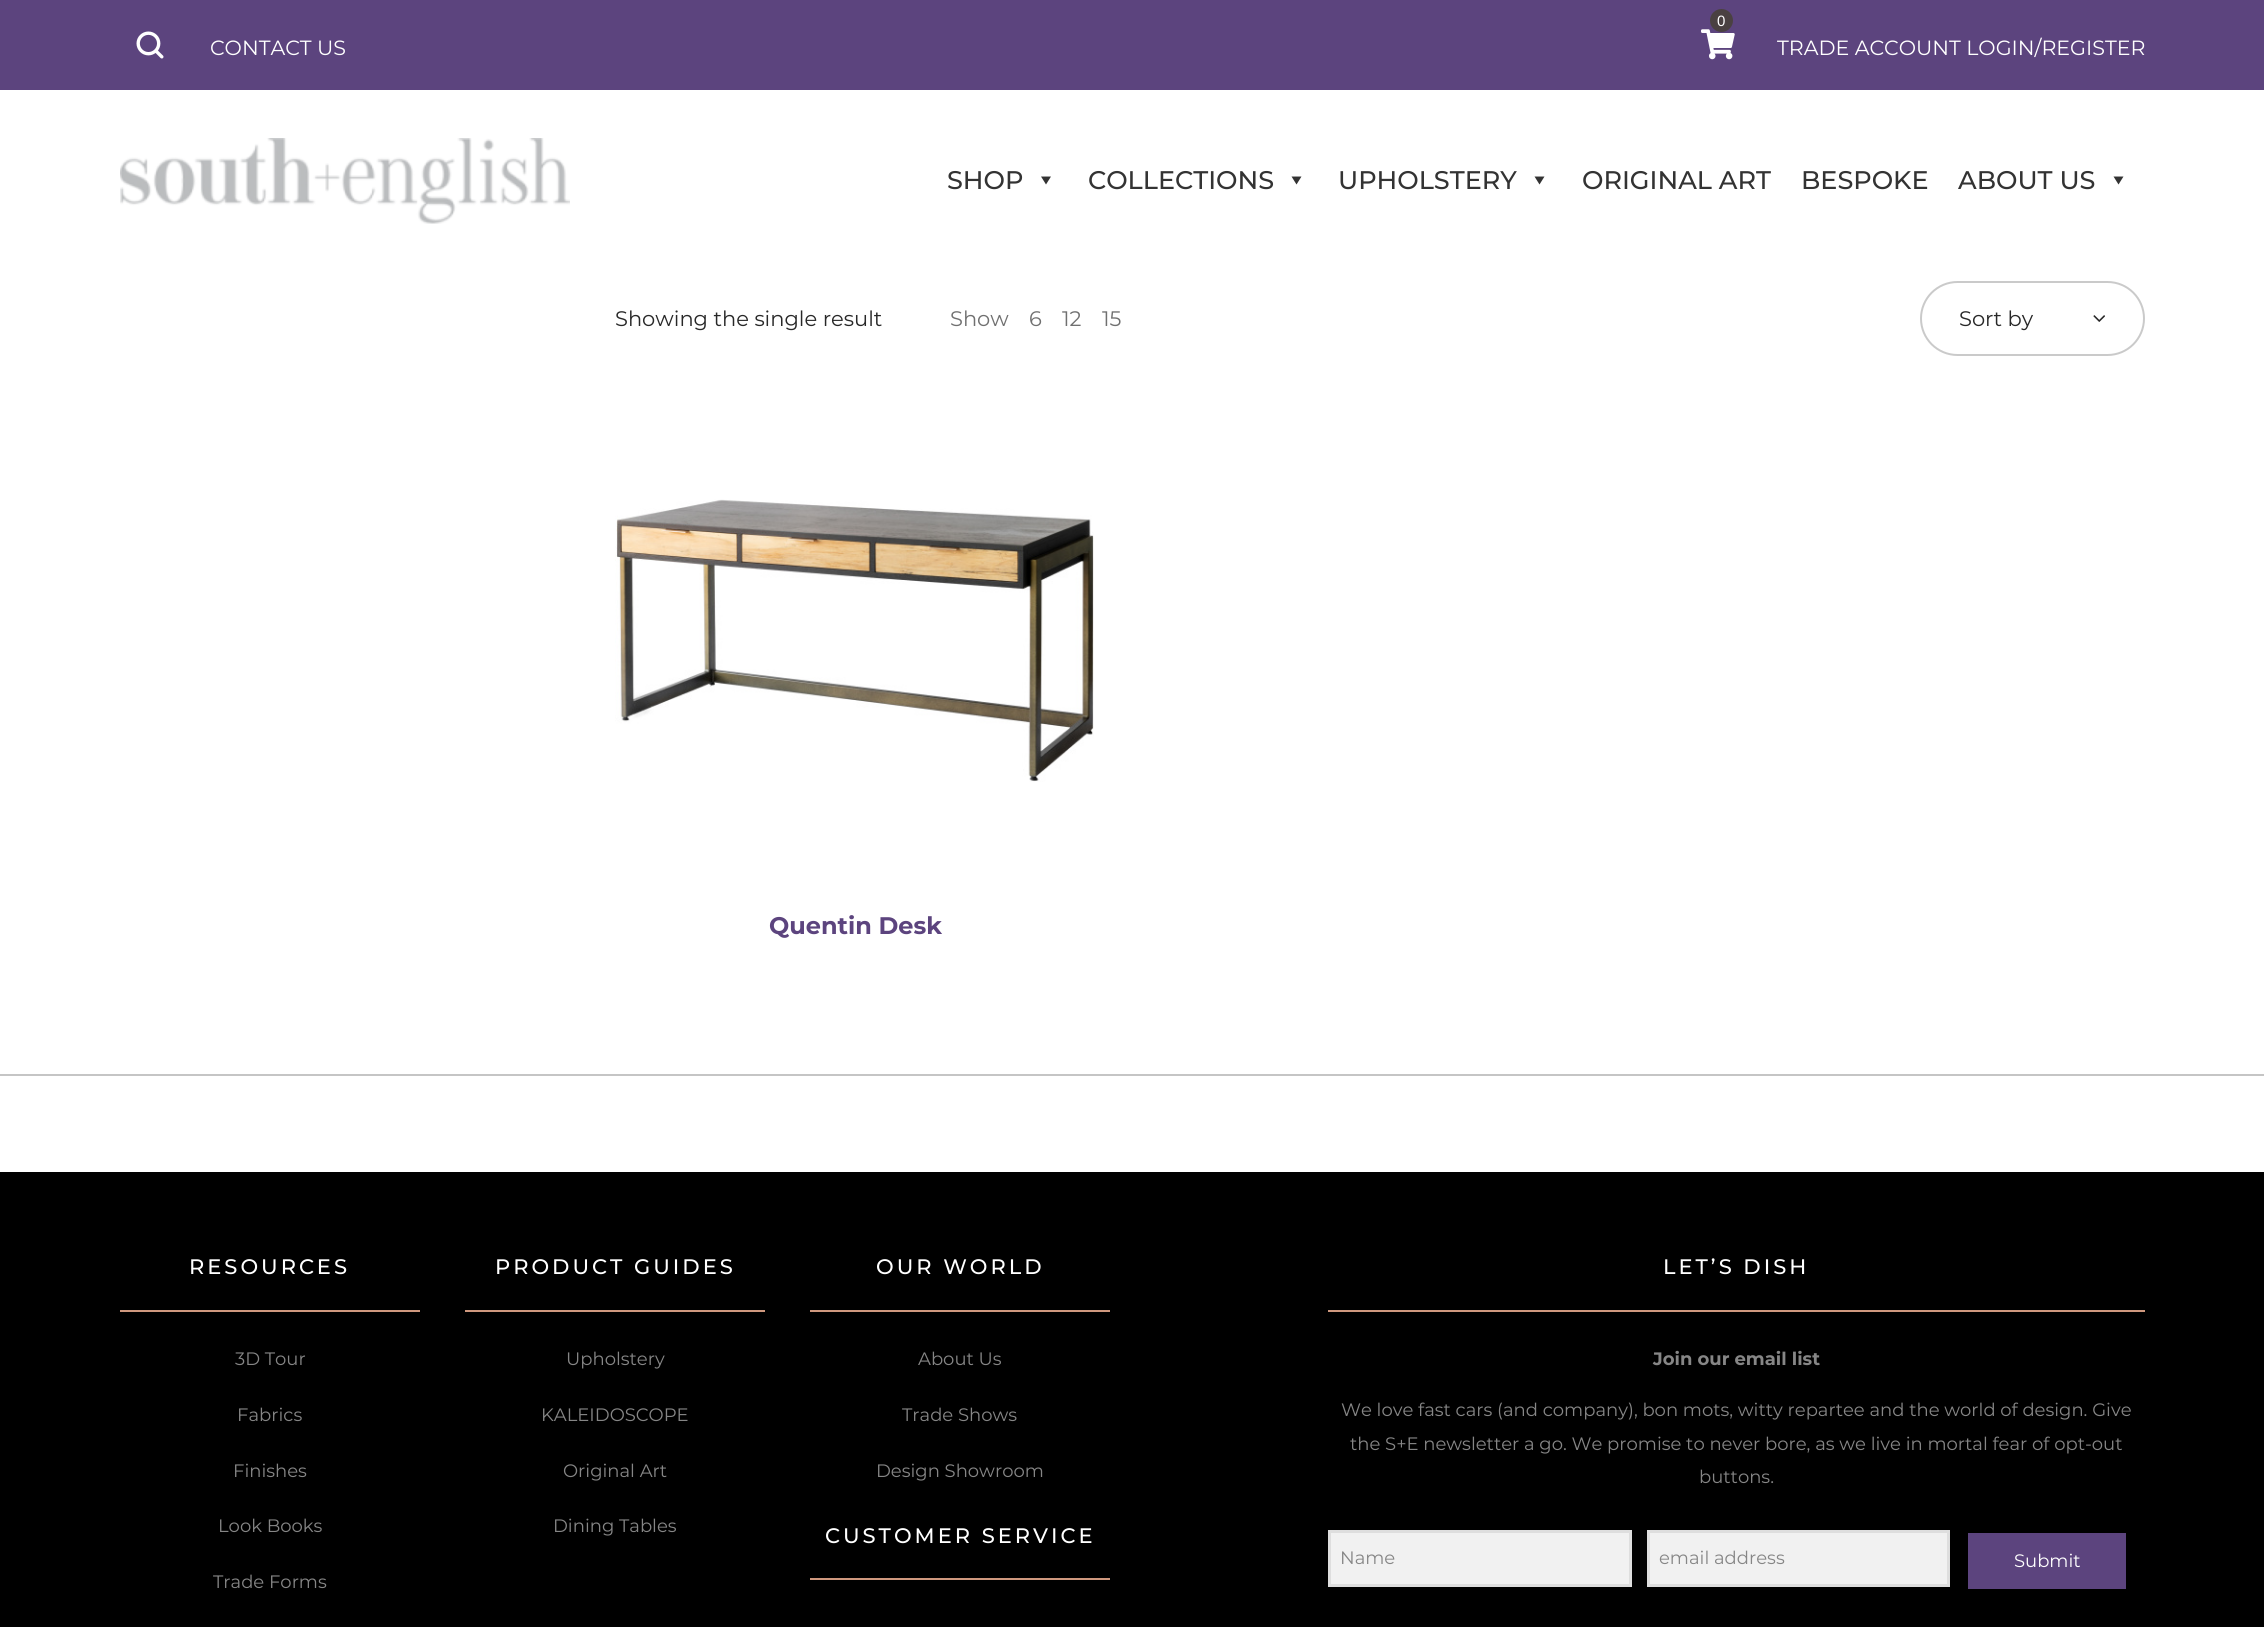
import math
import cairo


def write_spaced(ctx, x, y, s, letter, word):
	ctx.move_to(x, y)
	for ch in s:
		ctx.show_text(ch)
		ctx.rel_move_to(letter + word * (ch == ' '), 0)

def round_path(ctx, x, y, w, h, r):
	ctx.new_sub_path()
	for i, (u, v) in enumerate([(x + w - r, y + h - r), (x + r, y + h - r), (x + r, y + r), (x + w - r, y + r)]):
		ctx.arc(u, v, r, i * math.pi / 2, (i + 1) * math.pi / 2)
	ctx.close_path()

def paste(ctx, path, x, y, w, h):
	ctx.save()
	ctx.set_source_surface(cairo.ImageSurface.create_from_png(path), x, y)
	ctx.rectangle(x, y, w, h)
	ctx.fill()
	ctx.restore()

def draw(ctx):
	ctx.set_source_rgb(1, 1, 1)
	ctx.paint()
	ctx.set_source_rgb(0.361, 0.267, 0.494)
	ctx.rectangle(0, 0, 2264, 90)
	ctx.fill()
	paste(ctx, 'media/1.png', 1701, 29, 34, 31)
	ctx.set_source_rgb(0.29, 0.255, 0.255)
	ctx.arc(1721.5, 20.5, 11.5, 0, 2 * math.pi)
	ctx.fill()
	ctx.select_font_face('Liberation Sans')
	ctx.set_font_size(15)
	ctx.set_source_rgb(1, 1, 1)
	ctx.move_to(1717, 26)
	ctx.show_text('0')
	paste(ctx, 'media/2.png', 136, 31, 28, 28)
	ctx.select_font_face('Montserrat')
	ctx.set_font_size(20.6)
	ctx.move_to(210, 55)
	ctx.show_text('CONTACT US')
	ctx.move_to(1777, 55)
	ctx.show_text('TRADE ACCOUNT LOGIN/REGISTER')
	paste(ctx, 'media/3.png', 120, 138, 450, 86)
	ctx.select_font_face('Montserrat Medium')
	ctx.set_font_size(25.5)
	ctx.set_source_rgb(0.2, 0.2, 0.2)
	ctx.move_to(947, 189)
	ctx.show_text('SHOP')
	ctx.new_path()
	ctx.move_to(1051, 176.5)
	ctx.line_to(1046, 184.5)
	ctx.line_to(1041, 176.5)
	ctx.close_path()
	ctx.fill()
	ctx.move_to(1088, 189)
	ctx.show_text('COLLECTIONS')
	ctx.new_path()
	ctx.move_to(1301.5, 176.5)
	ctx.line_to(1296.5, 184.5)
	ctx.line_to(1291.5, 176.5)
	ctx.close_path()
	ctx.fill()
	ctx.move_to(1338, 189)
	ctx.show_text('UPHOLSTERY')
	ctx.new_path()
	ctx.move_to(1544.5, 176.5)
	ctx.line_to(1539.5, 184.5)
	ctx.line_to(1534.5, 176.5)
	ctx.close_path()
	ctx.fill()
	for x, y, s in [
		(1582, 189, 'ORIGINAL ART'),
		(1801, 189, 'BESPOKE'),
		(1958, 189, 'ABOUT US'),
	]:
		ctx.move_to(x, y)
		ctx.show_text(s)
	ctx.new_path()
	ctx.move_to(2123.5, 176.5)
	ctx.line_to(2118.5, 184.5)
	ctx.line_to(2113.5, 176.5)
	ctx.close_path()
	ctx.fill()
	ctx.select_font_face('Montserrat')
	ctx.set_font_size(21)
	ctx.set_source_rgb(0.157, 0.157, 0.157)
	ctx.move_to(615, 326)
	ctx.show_text('Showing the single result')
	ctx.set_source_rgb(0.439, 0.439, 0.439)
	for x, y, s in [
		(950, 326, 'Show'),
		(1029, 326, '6'),
		(1062, 326, '12'),
		(1102, 326, '15'),
	]:
		ctx.move_to(x, y)
		ctx.show_text(s)
	round_path(ctx, 1921, 282, 223, 73, 36.5)
	ctx.set_source_rgb(0.792, 0.792, 0.792)
	ctx.stroke()
	ctx.set_source_rgb(0.157, 0.157, 0.157)
	ctx.move_to(1959, 326)
	ctx.show_text('Sort by')
	paste(ctx, 'media/4.png', 2093, 315, 12, 7)
	paste(ctx, 'media/5.png', 615, 499, 479, 283)
	ctx.select_font_face('Montserrat', cairo.FONT_SLANT_NORMAL, cairo.FONT_WEIGHT_BOLD)
	ctx.set_font_size(24)
	ctx.set_source_rgb(0.361, 0.267, 0.494)
	ctx.move_to(769, 934)
	ctx.show_text('Quentin Desk')
	ctx.set_source_rgb(0.773, 0.773, 0.773)
	ctx.rectangle(0, 1074, 2264, 2)
	ctx.fill()
	ctx.set_source_rgb(0, 0, 0)
	ctx.rectangle(0, 1172, 2264, 455)
	ctx.fill()
	ctx.select_font_face('Montserrat Medium')
	ctx.set_font_size(21)
	ctx.set_source_rgb(1, 1, 1)
	write_spaced(ctx, 189, 1274, 'RESOURCES', 3, 0)
	ctx.set_source_rgb(0.812, 0.596, 0.494)
	ctx.rectangle(120, 1310, 300, 2)
	ctx.fill()
	ctx.select_font_face('Montserrat')
	ctx.set_font_size(18)
	ctx.set_source_rgb(0.525, 0.525, 0.525)
	for x, y, s in [
		(235, 1365, '3D Tour'),
		(237, 1421, 'Fabrics'),
		(233, 1477, 'Finishes'),
		(218, 1532, 'Look Books'),
		(213, 1588, 'Trade Forms'),
	]:
		ctx.move_to(x, y)
		ctx.show_text(s)
	ctx.select_font_face('Montserrat Medium')
	ctx.set_font_size(21)
	ctx.set_source_rgb(1, 1, 1)
	write_spaced(ctx, 495, 1274, 'PRODUCT GUIDES', 3, 0)
	ctx.set_source_rgb(0.812, 0.596, 0.494)
	ctx.rectangle(465, 1310, 300, 2)
	ctx.fill()
	ctx.select_font_face('Montserrat')
	ctx.set_font_size(18)
	ctx.set_source_rgb(0.525, 0.525, 0.525)
	for x, y, s in [
		(566, 1365, 'Upholstery'),
		(541, 1421, 'KALEIDOSCOPE'),
		(563, 1477, 'Original Art'),
		(553, 1532, 'Dining Tables'),
	]:
		ctx.move_to(x, y)
		ctx.show_text(s)
	ctx.select_font_face('Montserrat Medium')
	ctx.set_font_size(21)
	ctx.set_source_rgb(1, 1, 1)
	write_spaced(ctx, 876, 1274, 'OUR WORLD', 3, 0)
	ctx.set_source_rgb(0.812, 0.596, 0.494)
	ctx.rectangle(810, 1310, 300, 2)
	ctx.fill()
	ctx.select_font_face('Montserrat')
	ctx.set_font_size(18)
	ctx.set_source_rgb(0.525, 0.525, 0.525)
	for x, y, s in [
		(918, 1365, 'About Us'),
		(902, 1421, 'Trade Shows'),
		(876, 1477, 'Design Showroom'),
	]:
		ctx.move_to(x, y)
		ctx.show_text(s)
	ctx.select_font_face('Montserrat Medium')
	ctx.set_font_size(21)
	ctx.set_source_rgb(1, 1, 1)
	write_spaced(ctx, 825, 1543, 'CUSTOMER SERVICE', 3, 0)
	ctx.set_source_rgb(0.812, 0.596, 0.494)
	ctx.rectangle(810, 1578, 300, 2)
	ctx.fill()
	ctx.set_source_rgb(1, 1, 1)
	write_spaced(ctx, 1663, 1274, 'LET’S DISH', 3, 0)
	ctx.set_source_rgb(0.812, 0.596, 0.494)
	ctx.rectangle(1328, 1310, 817, 2)
	ctx.fill()
	ctx.select_font_face('Montserrat', cairo.FONT_SLANT_NORMAL, cairo.FONT_WEIGHT_BOLD)
	ctx.set_font_size(18)
	ctx.set_source_rgb(0.525, 0.525, 0.525)
	ctx.move_to(1653, 1365)
	ctx.show_text('Join our email list')
	ctx.select_font_face('Montserrat')
	for x, y, s in [
		(1341, 1416, 'We love fast cars (and company), bon mots, witty repartee and the world of design. Give'),
		(1350, 1450, 'the S+E newsletter a go. We promise to never bore, as we live in mortal fear of opt-out'),
		(1699, 1483, 'buttons.'),
	]:
		ctx.move_to(x, y)
		ctx.show_text(s)
	ctx.set_source_rgb(0.945, 0.945, 0.945)
	ctx.rectangle(1329.5, 1531.5, 301, 54)
	ctx.fill_preserve()
	ctx.set_source_rgb(0.871, 0.871, 0.871)
	ctx.set_line_width(3)
	ctx.stroke()
	ctx.set_source_rgb(0.525, 0.525, 0.525)
	ctx.move_to(1340, 1564)
	ctx.show_text('Name')
	ctx.set_source_rgb(0.945, 0.945, 0.945)
	ctx.rectangle(1648.5, 1531.5, 300, 54)
	ctx.fill_preserve()
	ctx.set_source_rgb(0.871, 0.871, 0.871)
	ctx.stroke()
	ctx.set_source_rgb(0.525, 0.525, 0.525)
	ctx.move_to(1659, 1564)
	ctx.show_text('email address')
	ctx.set_source_rgb(0.361, 0.267, 0.494)
	ctx.rectangle(1968, 1533, 158, 56)
	ctx.fill()
	ctx.set_source_rgb(1, 1, 1)
	ctx.move_to(2014, 1567)
	ctx.show_text('Submit')


surface = cairo.ImageSurface(cairo.FORMAT_RGB24, 2264, 1627)
ctx = cairo.Context(surface)
options = cairo.FontOptions()
options.set_hint_metrics(cairo.HINT_METRICS_OFF)
options.set_hint_style(cairo.HINT_STYLE_NONE)
ctx.set_font_options(options)
ctx.set_miter_limit(4)
draw(ctx)
surface.write_to_png('image.png')
